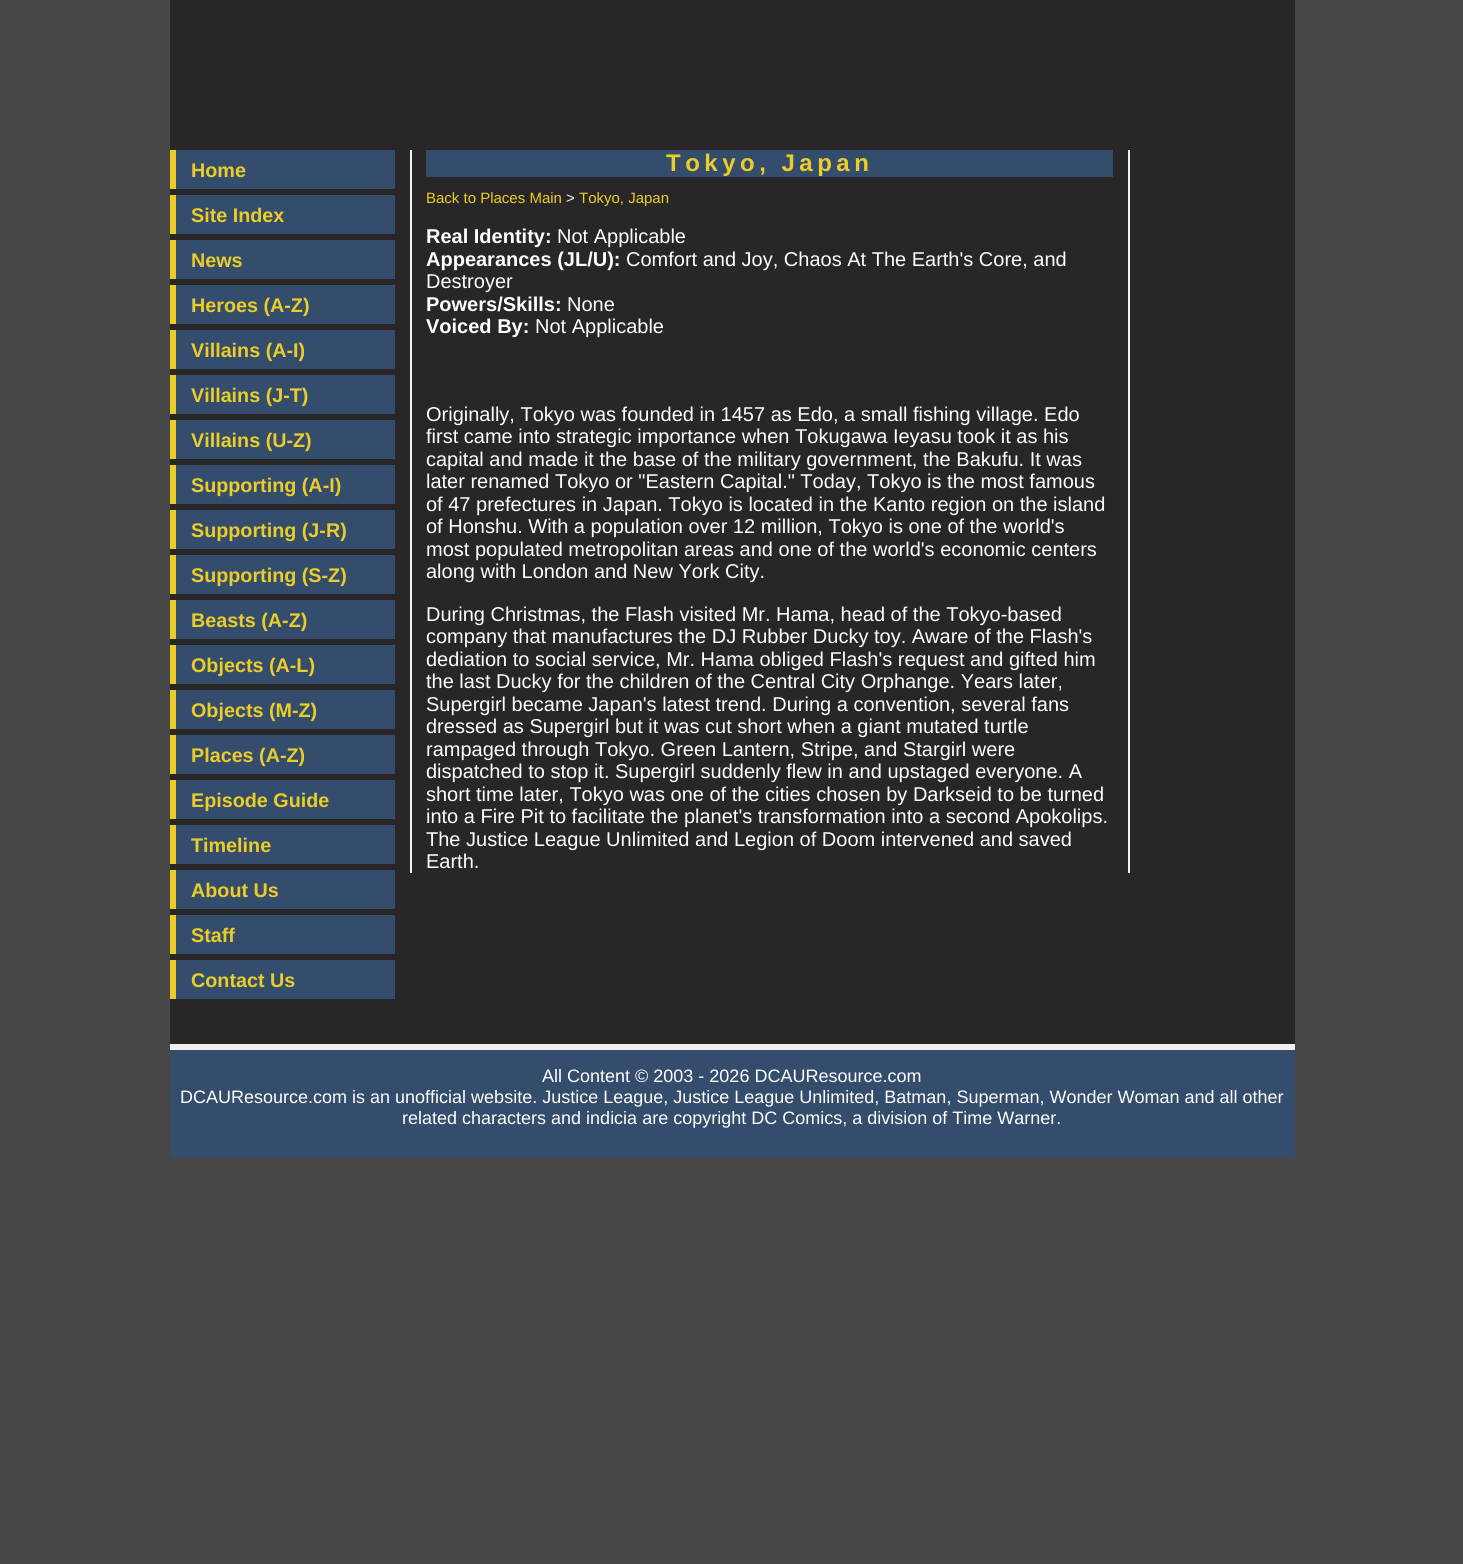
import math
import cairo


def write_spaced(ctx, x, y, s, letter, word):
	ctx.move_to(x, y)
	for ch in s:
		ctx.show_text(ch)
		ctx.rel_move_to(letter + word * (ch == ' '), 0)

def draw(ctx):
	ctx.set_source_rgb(0.278, 0.278, 0.278)
	ctx.paint()
	ctx.set_source_rgb(0.157, 0.149, 0.153)
	ctx.rectangle(170, 0, 1125, 1044)
	ctx.fill()
	ctx.set_source_rgb(0.204, 0.302, 0.424)
	ctx.rectangle(176, 150, 219, 39)
	ctx.fill()
	ctx.set_source_rgb(0.922, 0.804, 0.153)
	ctx.rectangle(170, 150, 6, 39)
	ctx.fill()
	ctx.select_font_face('Liberation Sans', cairo.FONT_SLANT_NORMAL, cairo.FONT_WEIGHT_BOLD)
	ctx.set_font_size(19.75)
	ctx.move_to(191, 177)
	ctx.show_text('Home')
	ctx.set_source_rgb(0.204, 0.302, 0.424)
	ctx.rectangle(176, 195, 219, 39)
	ctx.fill()
	ctx.set_source_rgb(0.922, 0.804, 0.153)
	ctx.rectangle(170, 195, 6, 39)
	ctx.fill()
	ctx.move_to(191, 222)
	ctx.show_text('Site Index')
	ctx.set_source_rgb(0.204, 0.302, 0.424)
	ctx.rectangle(176, 240, 219, 39)
	ctx.fill()
	ctx.set_source_rgb(0.922, 0.804, 0.153)
	ctx.rectangle(170, 240, 6, 39)
	ctx.fill()
	ctx.move_to(191, 267)
	ctx.show_text('News')
	ctx.set_source_rgb(0.204, 0.302, 0.424)
	ctx.rectangle(176, 285, 219, 39)
	ctx.fill()
	ctx.set_source_rgb(0.922, 0.804, 0.153)
	ctx.rectangle(170, 285, 6, 39)
	ctx.fill()
	ctx.move_to(191, 312)
	ctx.show_text('Heroes (A-Z)')
	ctx.set_source_rgb(0.204, 0.302, 0.424)
	ctx.rectangle(176, 330, 219, 39)
	ctx.fill()
	ctx.set_source_rgb(0.922, 0.804, 0.153)
	ctx.rectangle(170, 330, 6, 39)
	ctx.fill()
	ctx.move_to(191, 357)
	ctx.show_text('Villains (A-I)')
	ctx.set_source_rgb(0.204, 0.302, 0.424)
	ctx.rectangle(176, 375, 219, 39)
	ctx.fill()
	ctx.set_source_rgb(0.922, 0.804, 0.153)
	ctx.rectangle(170, 375, 6, 39)
	ctx.fill()
	ctx.move_to(191, 402)
	ctx.show_text('Villains (J-T)')
	ctx.set_source_rgb(0.204, 0.302, 0.424)
	ctx.rectangle(176, 420, 219, 39)
	ctx.fill()
	ctx.set_source_rgb(0.922, 0.804, 0.153)
	ctx.rectangle(170, 420, 6, 39)
	ctx.fill()
	ctx.move_to(191, 447)
	ctx.show_text('Villains (U-Z)')
	ctx.set_source_rgb(0.204, 0.302, 0.424)
	ctx.rectangle(176, 465, 219, 39)
	ctx.fill()
	ctx.set_source_rgb(0.922, 0.804, 0.153)
	ctx.rectangle(170, 465, 6, 39)
	ctx.fill()
	ctx.move_to(191, 492)
	ctx.show_text('Supporting (A-I)')
	ctx.set_source_rgb(0.204, 0.302, 0.424)
	ctx.rectangle(176, 510, 219, 39)
	ctx.fill()
	ctx.set_source_rgb(0.922, 0.804, 0.153)
	ctx.rectangle(170, 510, 6, 39)
	ctx.fill()
	ctx.move_to(191, 537)
	ctx.show_text('Supporting (J-R)')
	ctx.set_source_rgb(0.204, 0.302, 0.424)
	ctx.rectangle(176, 555, 219, 39)
	ctx.fill()
	ctx.set_source_rgb(0.922, 0.804, 0.153)
	ctx.rectangle(170, 555, 6, 39)
	ctx.fill()
	ctx.move_to(191, 582)
	ctx.show_text('Supporting (S-Z)')
	ctx.set_source_rgb(0.204, 0.302, 0.424)
	ctx.rectangle(176, 600, 219, 39)
	ctx.fill()
	ctx.set_source_rgb(0.922, 0.804, 0.153)
	ctx.rectangle(170, 600, 6, 39)
	ctx.fill()
	ctx.move_to(191, 627)
	ctx.show_text('Beasts (A-Z)')
	ctx.set_source_rgb(0.204, 0.302, 0.424)
	ctx.rectangle(176, 645, 219, 39)
	ctx.fill()
	ctx.set_source_rgb(0.922, 0.804, 0.153)
	ctx.rectangle(170, 645, 6, 39)
	ctx.fill()
	ctx.move_to(191, 672)
	ctx.show_text('Objects (A-L)')
	ctx.set_source_rgb(0.204, 0.302, 0.424)
	ctx.rectangle(176, 690, 219, 39)
	ctx.fill()
	ctx.set_source_rgb(0.922, 0.804, 0.153)
	ctx.rectangle(170, 690, 6, 39)
	ctx.fill()
	ctx.move_to(191, 717)
	ctx.show_text('Objects (M-Z)')
	ctx.set_source_rgb(0.204, 0.302, 0.424)
	ctx.rectangle(176, 735, 219, 39)
	ctx.fill()
	ctx.set_source_rgb(0.922, 0.804, 0.153)
	ctx.rectangle(170, 735, 6, 39)
	ctx.fill()
	ctx.move_to(191, 762)
	ctx.show_text('Places (A-Z)')
	ctx.set_source_rgb(0.204, 0.302, 0.424)
	ctx.rectangle(176, 780, 219, 39)
	ctx.fill()
	ctx.set_source_rgb(0.922, 0.804, 0.153)
	ctx.rectangle(170, 780, 6, 39)
	ctx.fill()
	ctx.move_to(191, 807)
	ctx.show_text('Episode Guide')
	ctx.set_source_rgb(0.204, 0.302, 0.424)
	ctx.rectangle(176, 825, 219, 39)
	ctx.fill()
	ctx.set_source_rgb(0.922, 0.804, 0.153)
	ctx.rectangle(170, 825, 6, 39)
	ctx.fill()
	ctx.move_to(191, 852)
	ctx.show_text('Timeline')
	ctx.set_source_rgb(0.204, 0.302, 0.424)
	ctx.rectangle(176, 870, 219, 39)
	ctx.fill()
	ctx.set_source_rgb(0.922, 0.804, 0.153)
	ctx.rectangle(170, 870, 6, 39)
	ctx.fill()
	ctx.move_to(191, 897)
	ctx.show_text('About Us')
	ctx.set_source_rgb(0.204, 0.302, 0.424)
	ctx.rectangle(176, 915, 219, 39)
	ctx.fill()
	ctx.set_source_rgb(0.922, 0.804, 0.153)
	ctx.rectangle(170, 915, 6, 39)
	ctx.fill()
	ctx.move_to(191, 942)
	ctx.show_text('Staff')
	ctx.set_source_rgb(0.204, 0.302, 0.424)
	ctx.rectangle(176, 960, 219, 39)
	ctx.fill()
	ctx.set_source_rgb(0.922, 0.804, 0.153)
	ctx.rectangle(170, 960, 6, 39)
	ctx.fill()
	ctx.move_to(191, 987)
	ctx.show_text('Contact Us')
	ctx.set_source_rgb(0.941, 0.941, 0.941)
	ctx.rectangle(1128, 150, 2, 723)
	ctx.rectangle(410, 150, 2, 723)
	ctx.fill()
	ctx.set_source_rgb(0.204, 0.302, 0.424)
	ctx.rectangle(426, 150, 687, 27)
	ctx.fill()
	ctx.set_font_size(24)
	ctx.set_source_rgb(0.922, 0.804, 0.153)
	write_spaced(ctx, 666, 171, 'Tokyo, Japan', 4.5, 0)
	ctx.select_font_face('Liberation Sans')
	ctx.set_font_size(15)
	ctx.move_to(426, 203)
	ctx.show_text('Back to Places Main')
	ctx.set_source_rgb(1, 1, 1)
	ctx.move_to(566, 203)
	ctx.show_text('>')
	ctx.set_source_rgb(0.922, 0.804, 0.153)
	ctx.move_to(579, 203)
	ctx.show_text('Tokyo, Japan')
	ctx.select_font_face('Liberation Sans', cairo.FONT_SLANT_NORMAL, cairo.FONT_WEIGHT_BOLD)
	ctx.set_font_size(20)
	ctx.set_source_rgb(1, 1, 1)
	ctx.move_to(426, 243)
	ctx.show_text('Real Identity:')
	ctx.select_font_face('Liberation Sans')
	ctx.move_to(557, 243)
	ctx.show_text('Not Applicable')
	ctx.select_font_face('Liberation Sans', cairo.FONT_SLANT_NORMAL, cairo.FONT_WEIGHT_BOLD)
	ctx.move_to(426, 266)
	ctx.show_text('Appearances (JL/U):')
	ctx.select_font_face('Liberation Sans')
	ctx.move_to(626, 266)
	ctx.show_text('Comfort and Joy, Chaos At The Earth\'s Core, and')
	ctx.move_to(426, 288)
	ctx.show_text('Destroyer')
	ctx.select_font_face('Liberation Sans', cairo.FONT_SLANT_NORMAL, cairo.FONT_WEIGHT_BOLD)
	ctx.move_to(426, 311)
	ctx.show_text('Powers/Skills:')
	ctx.select_font_face('Liberation Sans')
	ctx.move_to(567, 311)
	ctx.show_text('None')
	ctx.select_font_face('Liberation Sans', cairo.FONT_SLANT_NORMAL, cairo.FONT_WEIGHT_BOLD)
	ctx.move_to(426, 333)
	ctx.show_text('Voiced By:')
	ctx.select_font_face('Liberation Sans')
	for x, y, s in [
		(535, 333, 'Not Applicable'),
		(426, 421, 'Originally, Tokyo was founded in 1457 as Edo, a small fishing village. Edo'),
		(426, 443, 'first came into strategic importance when Tokugawa Ieyasu took it as his'),
		(426, 466, 'capital and made it the base of the military government, the Bakufu. It was'),
		(426, 488, 'later renamed Tokyo or "Eastern Capital." Today, Tokyo is the most famous'),
		(426, 511, 'of 47 prefectures in Japan. Tokyo is located in the Kanto region on the island'),
		(426, 533, 'of Honshu. With a population over 12 million, Tokyo is one of the world\'s'),
		(426, 556, 'most populated metropolitan areas and one of the world\'s economic centers'),
		(426, 578, 'along with London and New York City.'),
		(426, 621, 'During Christmas, the Flash visited Mr. Hama, head of the Tokyo-based'),
		(426, 643, 'company that manufactures the DJ Rubber Ducky toy. Aware of the Flash\'s'),
		(426, 666, 'dediation to social service, Mr. Hama obliged Flash\'s request and gifted him'),
		(426, 688, 'the last Ducky for the children of the Central City Orphange. Years later,'),
		(426, 711, 'Supergirl became Japan\'s latest trend. During a convention, several fans'),
		(426, 733, 'dressed as Supergirl but it was cut short when a giant mutated turtle'),
		(426, 756, 'rampaged through Tokyo. Green Lantern, Stripe, and Stargirl were'),
		(426, 778, 'dispatched to stop it. Supergirl suddenly flew in and upstaged everyone. A'),
		(426, 801, 'short time later, Tokyo was one of the cities chosen by Darkseid to be turned'),
		(426, 823, 'into a Fire Pit to facilitate the planet\'s transformation into a second Apokolips.'),
		(426, 846, 'The Justice League Unlimited and Legion of Doom intervened and saved'),
		(426, 868, 'Earth.'),
	]:
		ctx.move_to(x, y)
		ctx.show_text(s)
	ctx.set_source_rgb(0.204, 0.302, 0.424)
	ctx.rectangle(170, 1050, 1125, 108)
	ctx.fill()
	ctx.set_source_rgb(0.941, 0.941, 0.941)
	ctx.rectangle(170, 1044, 1125, 6)
	ctx.fill()
	ctx.set_font_size(18)
	ctx.set_source_rgb(1, 1, 1)
	for x, y, s in [
		(542, 1082, 'All Content © 2003 - 2026 DCAUResource.com'),
		(180, 1103, 'DCAUResource.com is an unofficial website. Justice League, Justice League Unlimited, Batman, Superman, Wonder Woman and all other'),
		(402, 1124, 'related characters and indicia are copyright DC Comics, a division of Time Warner.'),
	]:
		ctx.move_to(x, y)
		ctx.show_text(s)


surface = cairo.ImageSurface(cairo.FORMAT_RGB24, 1463, 1564)
ctx = cairo.Context(surface)
options = cairo.FontOptions()
options.set_hint_metrics(cairo.HINT_METRICS_OFF)
options.set_hint_style(cairo.HINT_STYLE_NONE)
ctx.set_font_options(options)
ctx.set_miter_limit(4)
draw(ctx)
surface.write_to_png('image.png')
